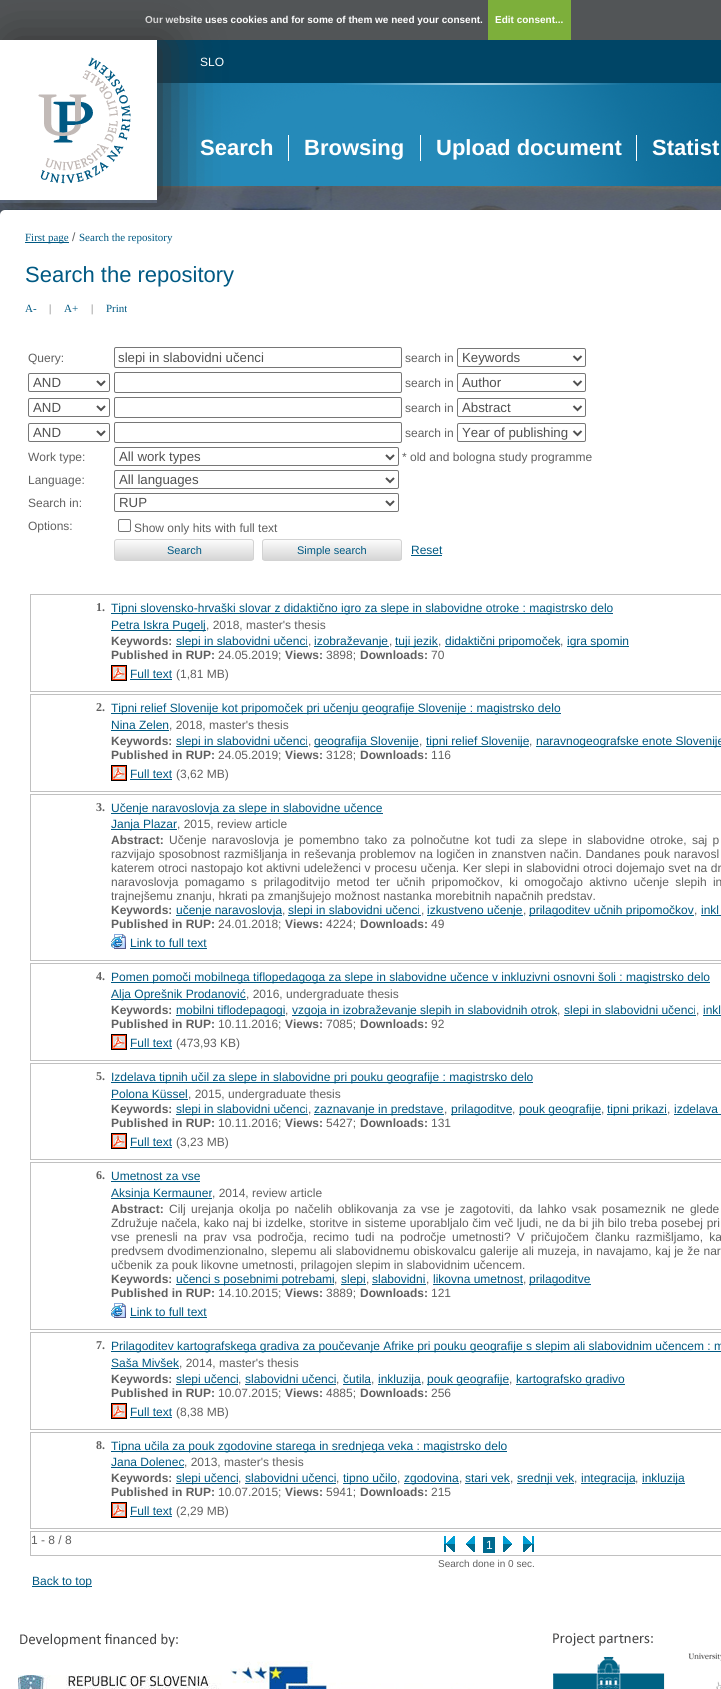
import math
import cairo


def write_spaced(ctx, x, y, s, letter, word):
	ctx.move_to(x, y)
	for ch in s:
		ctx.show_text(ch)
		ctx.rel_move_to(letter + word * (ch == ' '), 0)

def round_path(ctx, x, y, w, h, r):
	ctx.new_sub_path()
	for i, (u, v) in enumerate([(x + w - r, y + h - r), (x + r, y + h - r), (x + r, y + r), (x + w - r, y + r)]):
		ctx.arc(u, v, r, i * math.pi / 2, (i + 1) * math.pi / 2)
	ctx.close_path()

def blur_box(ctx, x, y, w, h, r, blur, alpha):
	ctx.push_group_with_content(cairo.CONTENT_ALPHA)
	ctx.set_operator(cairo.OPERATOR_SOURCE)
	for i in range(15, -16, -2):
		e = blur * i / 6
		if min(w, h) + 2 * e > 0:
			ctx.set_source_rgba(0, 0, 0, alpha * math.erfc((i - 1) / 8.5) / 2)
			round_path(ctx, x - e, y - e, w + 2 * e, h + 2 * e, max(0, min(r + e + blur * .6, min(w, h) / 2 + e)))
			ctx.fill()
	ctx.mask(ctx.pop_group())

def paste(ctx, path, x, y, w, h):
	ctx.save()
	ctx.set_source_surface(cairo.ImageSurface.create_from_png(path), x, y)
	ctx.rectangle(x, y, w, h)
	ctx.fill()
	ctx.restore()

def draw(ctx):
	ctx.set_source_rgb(0.322, 0.333, 0.341)
	ctx.paint()
	ctx.select_font_face('Liberation Sans', cairo.FONT_SLANT_NORMAL, cairo.FONT_WEIGHT_BOLD)
	ctx.set_font_size(10)
	ctx.set_source_rgb(1, 1, 1)
	ctx.move_to(145, 23)
	ctx.show_text('Our website uses cookies and for some of them we need your consent.')
	ctx.set_source_rgb(0.49, 0.686, 0.231)
	ctx.rectangle(488, 0, 83, 40)
	ctx.fill()
	ctx.set_source_rgb(1, 1, 1)
	ctx.move_to(495, 23)
	ctx.show_text('Edit consent...')
	ctx.rectangle(0, 1603, 721, 86)
	ctx.fill()
	paste(ctx, 'media/1.png', 157, 40, 564, 43)
	paste(ctx, 'media/2.png', 0, 186, 721, 29)
	paste(ctx, 'media/3.png', 157, 83, 564, 103)
	ctx.save()
	ctx.set_fill_rule(cairo.FILL_RULE_EVEN_ODD)
	ctx.new_path()
	ctx.move_to(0, 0)
	ctx.line_to(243, 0)
	ctx.line_to(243, 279)
	ctx.line_to(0, 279)
	ctx.close_path()
	ctx.move_to(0, 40)
	ctx.line_to(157, 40)
	ctx.line_to(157, 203)
	ctx.line_to(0, 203)
	ctx.close_path()
	ctx.clip()
	ctx.set_source_rgb(0.2, 0.2, 0.2)
	blur_box(ctx, 10, 40, 157, 163, 0, 25, 1)
	ctx.restore()
	paste(ctx, 'media/4.png', 0, 40, 157, 160)
	ctx.select_font_face('Liberation Sans')
	ctx.set_font_size(12)
	ctx.move_to(200, 66)
	ctx.show_text('SLO')
	ctx.select_font_face('Liberation Sans', cairo.FONT_SLANT_NORMAL, cairo.FONT_WEIGHT_BOLD)
	ctx.set_font_size(22)
	ctx.move_to(200, 155)
	ctx.show_text('Search')
	ctx.rectangle(288, 135, 1, 26)
	ctx.fill()
	ctx.move_to(304, 155)
	ctx.show_text('Browsing')
	ctx.rectangle(420, 135, 1, 26)
	ctx.fill()
	ctx.move_to(436, 155)
	ctx.show_text('Upload document')
	ctx.rectangle(636, 135, 1, 26)
	ctx.fill()
	ctx.move_to(652, 155)
	ctx.show_text('Statist')
	round_path(ctx, 0, 210, 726, 1398, 5)
	ctx.fill()
	ctx.set_source_rgb(0, 0.349, 0.514)
	ctx.rectangle(25, 242, 44, 1)
	ctx.fill()
	ctx.select_font_face('Liberation Serif')
	ctx.set_font_size(11)
	ctx.move_to(25, 241)
	ctx.show_text('First page')
	ctx.select_font_face('Liberation Sans')
	ctx.set_font_size(12)
	ctx.set_source_rgb(0.376, 0.376, 0.376)
	ctx.move_to(72, 241)
	ctx.show_text('/')
	ctx.select_font_face('Liberation Serif')
	ctx.set_font_size(11)
	ctx.set_source_rgb(0, 0.349, 0.514)
	ctx.move_to(79, 241)
	ctx.show_text('Search the repository')
	ctx.select_font_face('Liberation Sans')
	ctx.set_font_size(22)
	ctx.move_to(25, 282)
	ctx.show_text('Search the repository')
	ctx.select_font_face('Liberation Serif')
	ctx.set_font_size(11)
	ctx.move_to(25, 312)
	ctx.show_text('A-')
	ctx.set_source_rgb(0.376, 0.376, 0.376)
	ctx.move_to(49, 312)
	ctx.show_text('|')
	ctx.set_source_rgb(0, 0.349, 0.514)
	ctx.move_to(64, 312)
	ctx.show_text('A+')
	ctx.set_source_rgb(0.376, 0.376, 0.376)
	ctx.move_to(91, 312)
	ctx.show_text('|')
	ctx.set_source_rgb(0, 0.349, 0.514)
	ctx.move_to(106, 312)
	ctx.show_text('Print')
	ctx.select_font_face('Liberation Sans')
	ctx.set_font_size(12)
	ctx.set_source_rgb(0.376, 0.376, 0.376)
	ctx.move_to(28, 362)
	ctx.show_text('Query:')
	round_path(ctx, 114.5, 347.5, 287, 20, 1.5)
	ctx.set_source_rgb(0.463, 0.463, 0.463)
	ctx.set_line_width(1)
	ctx.stroke()
	ctx.set_font_size(13.25)
	ctx.set_source_rgb(0.314, 0.314, 0.314)
	ctx.move_to(118, 362)
	ctx.show_text('slepi in slabovidni učenci')
	ctx.set_font_size(12)
	ctx.set_source_rgb(0.376, 0.376, 0.376)
	ctx.move_to(405, 362)
	ctx.show_text('search in')
	round_path(ctx, 457.5, 348.5, 128, 18, 1.5)
	ctx.set_source_rgb(0.463, 0.463, 0.463)
	ctx.stroke()
	ctx.new_path()
	ctx.move_to(573.5, 356)
	ctx.line_to(577.5, 360)
	ctx.line_to(581.5, 356)
	ctx.set_source_rgb(0.314, 0.314, 0.314)
	ctx.set_line_width(2)
	ctx.stroke()
	ctx.set_font_size(13.25)
	ctx.move_to(462, 362)
	ctx.show_text('Keywords')
	round_path(ctx, 28.5, 373.5, 81, 18, 1.5)
	ctx.set_source_rgb(0.463, 0.463, 0.463)
	ctx.set_line_width(1)
	ctx.stroke()
	ctx.new_path()
	ctx.move_to(97, 381)
	ctx.line_to(101, 385)
	ctx.line_to(105, 381)
	ctx.set_source_rgb(0.314, 0.314, 0.314)
	ctx.set_line_width(2)
	ctx.stroke()
	ctx.move_to(33, 387)
	ctx.show_text('AND')
	round_path(ctx, 114.5, 372.5, 287, 20, 1.5)
	ctx.set_source_rgb(0.463, 0.463, 0.463)
	ctx.set_line_width(1)
	ctx.stroke()
	ctx.set_font_size(12)
	ctx.set_source_rgb(0.376, 0.376, 0.376)
	ctx.move_to(405, 387)
	ctx.show_text('search in')
	round_path(ctx, 457.5, 373.5, 128, 18, 1.5)
	ctx.set_source_rgb(0.463, 0.463, 0.463)
	ctx.stroke()
	ctx.new_path()
	ctx.move_to(573.5, 381)
	ctx.line_to(577.5, 385)
	ctx.line_to(581.5, 381)
	ctx.set_source_rgb(0.314, 0.314, 0.314)
	ctx.set_line_width(2)
	ctx.stroke()
	ctx.set_font_size(13.25)
	ctx.move_to(462, 387)
	ctx.show_text('Author')
	round_path(ctx, 28.5, 398.5, 81, 18, 1.5)
	ctx.set_source_rgb(0.463, 0.463, 0.463)
	ctx.set_line_width(1)
	ctx.stroke()
	ctx.new_path()
	ctx.move_to(97, 406)
	ctx.line_to(101, 410)
	ctx.line_to(105, 406)
	ctx.set_source_rgb(0.314, 0.314, 0.314)
	ctx.set_line_width(2)
	ctx.stroke()
	ctx.move_to(33, 412)
	ctx.show_text('AND')
	round_path(ctx, 114.5, 397.5, 287, 20, 1.5)
	ctx.set_source_rgb(0.463, 0.463, 0.463)
	ctx.set_line_width(1)
	ctx.stroke()
	ctx.set_font_size(12)
	ctx.set_source_rgb(0.376, 0.376, 0.376)
	ctx.move_to(405, 412)
	ctx.show_text('search in')
	round_path(ctx, 457.5, 398.5, 128, 18, 1.5)
	ctx.set_source_rgb(0.463, 0.463, 0.463)
	ctx.stroke()
	ctx.new_path()
	ctx.move_to(573.5, 406)
	ctx.line_to(577.5, 410)
	ctx.line_to(581.5, 406)
	ctx.set_source_rgb(0.314, 0.314, 0.314)
	ctx.set_line_width(2)
	ctx.stroke()
	ctx.set_font_size(13.25)
	ctx.move_to(462, 412)
	ctx.show_text('Abstract')
	round_path(ctx, 28.5, 423.5, 81, 18, 1.5)
	ctx.set_source_rgb(0.463, 0.463, 0.463)
	ctx.set_line_width(1)
	ctx.stroke()
	ctx.new_path()
	ctx.move_to(97, 431)
	ctx.line_to(101, 435)
	ctx.line_to(105, 431)
	ctx.set_source_rgb(0.314, 0.314, 0.314)
	ctx.set_line_width(2)
	ctx.stroke()
	ctx.move_to(33, 437)
	ctx.show_text('AND')
	round_path(ctx, 114.5, 422.5, 287, 20, 1.5)
	ctx.set_source_rgb(0.463, 0.463, 0.463)
	ctx.set_line_width(1)
	ctx.stroke()
	ctx.set_font_size(12)
	ctx.set_source_rgb(0.376, 0.376, 0.376)
	ctx.move_to(405, 437)
	ctx.show_text('search in')
	round_path(ctx, 457.5, 423.5, 128, 18, 1.5)
	ctx.set_source_rgb(0.463, 0.463, 0.463)
	ctx.stroke()
	ctx.new_path()
	ctx.move_to(573.5, 431)
	ctx.line_to(577.5, 435)
	ctx.line_to(581.5, 431)
	ctx.set_source_rgb(0.314, 0.314, 0.314)
	ctx.set_line_width(2)
	ctx.stroke()
	ctx.set_font_size(13.25)
	ctx.move_to(462, 437)
	ctx.show_text('Year of publishing')
	ctx.set_font_size(12)
	ctx.set_source_rgb(0.376, 0.376, 0.376)
	ctx.move_to(28, 461)
	ctx.show_text('Work type:')
	round_path(ctx, 114.5, 447.5, 284, 18, 1.5)
	ctx.set_source_rgb(0.463, 0.463, 0.463)
	ctx.set_line_width(1)
	ctx.stroke()
	ctx.new_path()
	ctx.move_to(386, 455)
	ctx.line_to(390, 459)
	ctx.line_to(394, 455)
	ctx.set_source_rgb(0.314, 0.314, 0.314)
	ctx.set_line_width(2)
	ctx.stroke()
	ctx.set_font_size(13.25)
	ctx.move_to(119, 461)
	ctx.show_text('All work types')
	ctx.set_font_size(12)
	ctx.set_source_rgb(0.376, 0.376, 0.376)
	ctx.move_to(402, 461)
	ctx.show_text('* old and bologna study programme')
	ctx.move_to(28, 484)
	ctx.show_text('Language:')
	round_path(ctx, 114.5, 470.5, 284, 18, 1.5)
	ctx.set_source_rgb(0.463, 0.463, 0.463)
	ctx.set_line_width(1)
	ctx.stroke()
	ctx.new_path()
	ctx.move_to(386, 478)
	ctx.line_to(390, 482)
	ctx.line_to(394, 478)
	ctx.set_source_rgb(0.314, 0.314, 0.314)
	ctx.set_line_width(2)
	ctx.stroke()
	ctx.set_font_size(13.25)
	ctx.move_to(119, 484)
	ctx.show_text('All languages')
	ctx.set_font_size(12)
	ctx.set_source_rgb(0.376, 0.376, 0.376)
	ctx.move_to(28, 507)
	ctx.show_text('Search in:')
	round_path(ctx, 114.5, 493.5, 284, 18, 1.5)
	ctx.set_source_rgb(0.463, 0.463, 0.463)
	ctx.set_line_width(1)
	ctx.stroke()
	ctx.new_path()
	ctx.move_to(386, 501)
	ctx.line_to(390, 505)
	ctx.line_to(394, 501)
	ctx.set_source_rgb(0.314, 0.314, 0.314)
	ctx.set_line_width(2)
	ctx.stroke()
	ctx.set_font_size(13.25)
	ctx.move_to(119, 507)
	ctx.show_text('RUP')
	ctx.set_font_size(12)
	ctx.set_source_rgb(0.376, 0.376, 0.376)
	ctx.move_to(28, 530)
	ctx.show_text('Options:')
	round_path(ctx, 118.5, 519.5, 12, 12, 1.5)
	ctx.set_source_rgb(0.463, 0.463, 0.463)
	ctx.set_line_width(1)
	ctx.stroke()
	ctx.set_source_rgb(0.376, 0.376, 0.376)
	ctx.move_to(134, 532)
	ctx.show_text('Show only hits with full text')
	ctx.save()
	round_path(ctx, 114, 539, 140, 22, 3)
	ctx.clip()
	gradient = cairo.LinearGradient(184, 540, 184, 560)
	gradient.add_color_stop_rgba(0, 0.988, 0.988, 0.988, 1)
	gradient.add_color_stop_rgba(1, 0.835, 0.835, 0.835, 1)
	ctx.set_source(gradient)
	ctx.rectangle(114, 540, 140, 20)
	ctx.fill()
	ctx.restore()
	round_path(ctx, 114.5, 539.5, 139, 21, 2.5)
	ctx.set_source_rgb(0.827, 0.827, 0.827)
	ctx.stroke()
	ctx.set_font_size(11)
	ctx.set_source_rgb(0, 0.349, 0.514)
	ctx.move_to(167, 554)
	ctx.show_text('Search')
	ctx.save()
	round_path(ctx, 262, 539, 140, 22, 3)
	ctx.clip()
	gradient = cairo.LinearGradient(332, 540, 332, 560)
	gradient.add_color_stop_rgba(0, 0.988, 0.988, 0.988, 1)
	gradient.add_color_stop_rgba(1, 0.835, 0.835, 0.835, 1)
	ctx.set_source(gradient)
	ctx.rectangle(262, 540, 140, 20)
	ctx.fill()
	ctx.restore()
	round_path(ctx, 262.5, 539.5, 139, 21, 2.5)
	ctx.set_source_rgb(0.827, 0.827, 0.827)
	ctx.stroke()
	ctx.set_source_rgb(0, 0.349, 0.514)
	ctx.move_to(297, 554)
	ctx.show_text('Simple search')
	ctx.set_font_size(12)
	ctx.move_to(411, 554)
	ctx.show_text('Reset')
	ctx.rectangle(411, 555, 31, 1)
	ctx.fill()
	ctx.rectangle(30.5, 594.5, 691, 97)
	ctx.set_source_rgb(0.753, 0.753, 0.753)
	ctx.stroke()
	ctx.select_font_face('Liberation Serif', cairo.FONT_SLANT_NORMAL, cairo.FONT_WEIGHT_BOLD)
	ctx.set_source_rgb(0.376, 0.376, 0.376)
	ctx.move_to(96, 611)
	ctx.show_text('1.')
	ctx.set_source_rgb(0, 0.349, 0.514)
	ctx.rectangle(111, 613, 502, 1)
	ctx.fill()
	ctx.select_font_face('Liberation Sans')
	ctx.move_to(111, 612)
	ctx.show_text('Tipni slovensko-hrvaški slovar z didaktično igro za slepe in slabovidne otroke : magistrsko delo')
	ctx.rectangle(111, 630, 95, 1)
	ctx.fill()
	ctx.move_to(111, 629)
	ctx.show_text('Petra Iskra Pugelj')
	ctx.set_source_rgb(0.376, 0.376, 0.376)
	ctx.move_to(206, 629)
	ctx.show_text(', 2018, master\'s thesis')
	ctx.select_font_face('Liberation Sans', cairo.FONT_SLANT_NORMAL, cairo.FONT_WEIGHT_BOLD)
	ctx.move_to(111, 645)
	ctx.show_text('Keywords:')
	ctx.set_source_rgb(0, 0.349, 0.514)
	ctx.rectangle(176, 646, 132, 1)
	ctx.fill()
	ctx.select_font_face('Liberation Sans')
	ctx.move_to(176, 645)
	ctx.show_text('slepi in slabovidni učenci')
	ctx.set_source_rgb(0.376, 0.376, 0.376)
	ctx.move_to(308, 645)
	ctx.show_text(',')
	ctx.set_source_rgb(0, 0.349, 0.514)
	ctx.rectangle(314, 646, 75, 1)
	ctx.fill()
	ctx.move_to(314, 645)
	ctx.show_text('izobraževanje')
	ctx.set_source_rgb(0.376, 0.376, 0.376)
	ctx.move_to(389, 645)
	ctx.show_text(',')
	ctx.set_source_rgb(0, 0.349, 0.514)
	ctx.rectangle(395, 646, 43, 1)
	ctx.fill()
	ctx.move_to(395, 645)
	ctx.show_text('tuji jezik')
	ctx.set_source_rgb(0.376, 0.376, 0.376)
	ctx.move_to(438, 645)
	ctx.show_text(',')
	ctx.set_source_rgb(0, 0.349, 0.514)
	ctx.rectangle(445, 646, 115, 1)
	ctx.fill()
	ctx.move_to(445, 645)
	ctx.show_text('didaktični pripomoček')
	ctx.set_source_rgb(0.376, 0.376, 0.376)
	ctx.move_to(560, 645)
	ctx.show_text(',')
	ctx.set_source_rgb(0, 0.349, 0.514)
	ctx.rectangle(567, 646, 62, 1)
	ctx.fill()
	ctx.move_to(567, 645)
	ctx.show_text('igra spomin')
	ctx.select_font_face('Liberation Sans', cairo.FONT_SLANT_NORMAL, cairo.FONT_WEIGHT_BOLD)
	ctx.set_source_rgb(0.376, 0.376, 0.376)
	ctx.move_to(111, 659)
	ctx.show_text('Published in RUP:')
	ctx.select_font_face('Liberation Sans')
	ctx.move_to(218, 659)
	ctx.show_text('24.05.2019;')
	ctx.select_font_face('Liberation Sans', cairo.FONT_SLANT_NORMAL, cairo.FONT_WEIGHT_BOLD)
	ctx.move_to(285, 659)
	ctx.show_text('Views:')
	ctx.select_font_face('Liberation Sans')
	ctx.move_to(326, 659)
	ctx.show_text('3898;')
	ctx.select_font_face('Liberation Sans', cairo.FONT_SLANT_NORMAL, cairo.FONT_WEIGHT_BOLD)
	ctx.move_to(360, 659)
	ctx.show_text('Downloads:')
	ctx.select_font_face('Liberation Sans')
	ctx.move_to(431, 659)
	ctx.show_text('70')
	paste(ctx, 'media/5.png', 111, 665, 16, 16)
	ctx.set_source_rgb(0, 0.349, 0.514)
	ctx.move_to(130, 678)
	ctx.show_text('Full text')
	ctx.rectangle(130, 679, 42, 1)
	ctx.fill()
	ctx.set_source_rgb(0.376, 0.376, 0.376)
	ctx.move_to(176, 678)
	ctx.show_text('(1,81 MB)')
	ctx.rectangle(30.5, 694.5, 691, 97)
	ctx.set_source_rgb(0.753, 0.753, 0.753)
	ctx.stroke()
	ctx.select_font_face('Liberation Serif', cairo.FONT_SLANT_NORMAL, cairo.FONT_WEIGHT_BOLD)
	ctx.set_source_rgb(0.376, 0.376, 0.376)
	ctx.move_to(96, 711)
	ctx.show_text('2.')
	ctx.set_source_rgb(0, 0.349, 0.514)
	ctx.rectangle(111, 713, 450, 1)
	ctx.fill()
	ctx.select_font_face('Liberation Sans')
	ctx.move_to(111, 712)
	ctx.show_text('Tipni relief Slovenije kot pripomoček pri učenju geografije Slovenije : magistrsko delo')
	ctx.move_to(111, 729)
	ctx.show_text('Nina Zelen')
	ctx.rectangle(111, 730, 58, 1)
	ctx.fill()
	ctx.set_source_rgb(0.376, 0.376, 0.376)
	ctx.move_to(169, 729)
	ctx.show_text(', 2018, master\'s thesis')
	ctx.select_font_face('Liberation Sans', cairo.FONT_SLANT_NORMAL, cairo.FONT_WEIGHT_BOLD)
	ctx.move_to(111, 745)
	ctx.show_text('Keywords:')
	ctx.set_source_rgb(0, 0.349, 0.514)
	ctx.rectangle(176, 746, 132, 1)
	ctx.fill()
	ctx.select_font_face('Liberation Sans')
	ctx.move_to(176, 745)
	ctx.show_text('slepi in slabovidni učenci')
	ctx.set_source_rgb(0.376, 0.376, 0.376)
	ctx.move_to(308, 745)
	ctx.show_text(',')
	ctx.set_source_rgb(0, 0.349, 0.514)
	ctx.rectangle(314, 746, 105, 1)
	ctx.fill()
	ctx.move_to(314, 745)
	ctx.show_text('geografija Slovenije')
	ctx.set_source_rgb(0.376, 0.376, 0.376)
	ctx.move_to(419, 745)
	ctx.show_text(',')
	ctx.set_source_rgb(0, 0.349, 0.514)
	ctx.rectangle(426, 746, 103, 1)
	ctx.fill()
	ctx.move_to(426, 745)
	ctx.show_text('tipni relief Slovenije')
	ctx.set_source_rgb(0.376, 0.376, 0.376)
	ctx.move_to(529, 745)
	ctx.show_text(',')
	ctx.set_source_rgb(0, 0.349, 0.514)
	ctx.rectangle(536, 746, 185, 1)
	ctx.fill()
	ctx.move_to(536, 745)
	ctx.show_text('naravnogeografske enote Slovenije')
	ctx.select_font_face('Liberation Sans', cairo.FONT_SLANT_NORMAL, cairo.FONT_WEIGHT_BOLD)
	ctx.set_source_rgb(0.376, 0.376, 0.376)
	ctx.move_to(111, 759)
	ctx.show_text('Published in RUP:')
	ctx.select_font_face('Liberation Sans')
	ctx.move_to(218, 759)
	ctx.show_text('24.05.2019;')
	ctx.select_font_face('Liberation Sans', cairo.FONT_SLANT_NORMAL, cairo.FONT_WEIGHT_BOLD)
	ctx.move_to(285, 759)
	ctx.show_text('Views:')
	ctx.select_font_face('Liberation Sans')
	ctx.move_to(326, 759)
	ctx.show_text('3128;')
	ctx.select_font_face('Liberation Sans', cairo.FONT_SLANT_NORMAL, cairo.FONT_WEIGHT_BOLD)
	ctx.move_to(360, 759)
	ctx.show_text('Downloads:')
	ctx.select_font_face('Liberation Sans')
	ctx.move_to(431, 759)
	ctx.show_text('116')
	paste(ctx, 'media/5.png', 111, 765, 16, 16)
	ctx.set_source_rgb(0, 0.349, 0.514)
	ctx.move_to(130, 778)
	ctx.show_text('Full text')
	ctx.rectangle(130, 779, 42, 1)
	ctx.fill()
	ctx.set_source_rgb(0.376, 0.376, 0.376)
	ctx.move_to(176, 778)
	ctx.show_text('(3,62 MB)')
	ctx.rectangle(30.5, 794.5, 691, 166)
	ctx.set_source_rgb(0.753, 0.753, 0.753)
	ctx.stroke()
	ctx.select_font_face('Liberation Serif', cairo.FONT_SLANT_NORMAL, cairo.FONT_WEIGHT_BOLD)
	ctx.set_source_rgb(0.376, 0.376, 0.376)
	ctx.move_to(96, 811)
	ctx.show_text('3.')
	ctx.set_source_rgb(0, 0.349, 0.514)
	ctx.rectangle(111, 813, 272, 1)
	ctx.fill()
	ctx.select_font_face('Liberation Sans')
	ctx.move_to(111, 812)
	ctx.show_text('Učenje naravoslovja za slepe in slabovidne učence')
	ctx.rectangle(111, 829, 66, 1)
	ctx.fill()
	ctx.move_to(111, 828)
	ctx.show_text('Janja Plazar')
	ctx.set_source_rgb(0.376, 0.376, 0.376)
	ctx.move_to(177, 828)
	ctx.show_text(', 2015, review article')
	ctx.select_font_face('Liberation Sans', cairo.FONT_SLANT_NORMAL, cairo.FONT_WEIGHT_BOLD)
	ctx.move_to(111, 844)
	ctx.show_text('Abstract:')
	ctx.select_font_face('Liberation Sans')
	write_spaced(ctx, 169, 844, 'Učenje naravoslovja je pomembno tako za polnočutne kot tudi za slepe in slabovidne otroke, saj p', 0, 2)
	write_spaced(ctx, 111, 858, 'razvijajo sposobnost razmišljanja in reševanja problemov na logičen in znanstven način. Dandanes pouk naravosl', 0, 0.4)
	write_spaced(ctx, 111, 872, 'katerem otroci nastopajo kot aktivni udeleženci v procesu učenja. Ker slepi in slabovidni otroci dojemajo svet na dr', 0, 0.25)
	write_spaced(ctx, 111, 886, 'naravoslovja pomagamo s prilagoditvijo metod ter učnih pripomočkov, ki omogočajo aktivno učenje slepih in', 0, 3)
	ctx.move_to(111, 900)
	ctx.show_text('trajnejšemu znanju, hkrati pa zmanjšujejo možnost nastanka morebitnih napačnih predstav.')
	ctx.select_font_face('Liberation Sans', cairo.FONT_SLANT_NORMAL, cairo.FONT_WEIGHT_BOLD)
	ctx.move_to(111, 914)
	ctx.show_text('Keywords:')
	ctx.set_source_rgb(0, 0.349, 0.514)
	ctx.rectangle(176, 915, 106, 1)
	ctx.fill()
	ctx.select_font_face('Liberation Sans')
	ctx.move_to(176, 914)
	ctx.show_text('učenje naravoslovja')
	ctx.set_source_rgb(0.376, 0.376, 0.376)
	ctx.move_to(282, 914)
	ctx.show_text(',')
	ctx.set_source_rgb(0, 0.349, 0.514)
	ctx.rectangle(288, 915, 133, 1)
	ctx.fill()
	ctx.move_to(288, 914)
	ctx.show_text('slepi in slabovidni učenci')
	ctx.set_source_rgb(0.376, 0.376, 0.376)
	ctx.move_to(421, 914)
	ctx.show_text(',')
	ctx.set_source_rgb(0, 0.349, 0.514)
	ctx.rectangle(427, 915, 96, 1)
	ctx.fill()
	ctx.move_to(427, 914)
	ctx.show_text('izkustveno učenje')
	ctx.set_source_rgb(0.376, 0.376, 0.376)
	ctx.move_to(523, 914)
	ctx.show_text(',')
	ctx.set_source_rgb(0, 0.349, 0.514)
	ctx.rectangle(529, 915, 165, 1)
	ctx.fill()
	ctx.move_to(529, 914)
	ctx.show_text('prilagoditev učnih pripomočkov')
	ctx.set_source_rgb(0.376, 0.376, 0.376)
	ctx.move_to(694, 914)
	ctx.show_text(',')
	ctx.set_source_rgb(0, 0.349, 0.514)
	ctx.move_to(701, 914)
	ctx.show_text('inkl')
	ctx.rectangle(701, 915, 20, 1)
	ctx.fill()
	ctx.select_font_face('Liberation Sans', cairo.FONT_SLANT_NORMAL, cairo.FONT_WEIGHT_BOLD)
	ctx.set_source_rgb(0.376, 0.376, 0.376)
	ctx.move_to(111, 928)
	ctx.show_text('Published in RUP:')
	ctx.select_font_face('Liberation Sans')
	ctx.move_to(218, 928)
	ctx.show_text('24.01.2018;')
	ctx.select_font_face('Liberation Sans', cairo.FONT_SLANT_NORMAL, cairo.FONT_WEIGHT_BOLD)
	ctx.move_to(285, 928)
	ctx.show_text('Views:')
	ctx.select_font_face('Liberation Sans')
	ctx.move_to(326, 928)
	ctx.show_text('4224;')
	ctx.select_font_face('Liberation Sans', cairo.FONT_SLANT_NORMAL, cairo.FONT_WEIGHT_BOLD)
	ctx.move_to(360, 928)
	ctx.show_text('Downloads:')
	ctx.select_font_face('Liberation Sans')
	ctx.move_to(431, 928)
	ctx.show_text('49')
	paste(ctx, 'media/6.png', 111, 934, 15, 15)
	ctx.set_source_rgb(0, 0.349, 0.514)
	ctx.move_to(130, 947)
	ctx.show_text('Link to full text')
	ctx.rectangle(130, 948, 77, 1)
	ctx.fill()
	ctx.rectangle(30.5, 963.5, 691, 97)
	ctx.set_source_rgb(0.753, 0.753, 0.753)
	ctx.stroke()
	ctx.select_font_face('Liberation Serif', cairo.FONT_SLANT_NORMAL, cairo.FONT_WEIGHT_BOLD)
	ctx.set_source_rgb(0.376, 0.376, 0.376)
	ctx.move_to(96, 980)
	ctx.show_text('4.')
	ctx.set_source_rgb(0, 0.349, 0.514)
	ctx.rectangle(111, 982, 599, 1)
	ctx.fill()
	ctx.select_font_face('Liberation Sans')
	ctx.move_to(111, 981)
	ctx.show_text('Pomen pomoči mobilnega tiflopedagoga za slepe in slabovidne učence v inkluzivni osnovni šoli : magistrsko delo')
	ctx.rectangle(111, 999, 135, 1)
	ctx.fill()
	ctx.move_to(111, 998)
	ctx.show_text('Alja Oprešnik Prodanović')
	ctx.set_source_rgb(0.376, 0.376, 0.376)
	ctx.move_to(246, 998)
	ctx.show_text(', 2016, undergraduate thesis')
	ctx.select_font_face('Liberation Sans', cairo.FONT_SLANT_NORMAL, cairo.FONT_WEIGHT_BOLD)
	ctx.move_to(111, 1014)
	ctx.show_text('Keywords:')
	ctx.set_source_rgb(0, 0.349, 0.514)
	ctx.rectangle(176, 1015, 109, 1)
	ctx.fill()
	ctx.select_font_face('Liberation Sans')
	ctx.move_to(176, 1014)
	ctx.show_text('mobilni tiflodepagogi')
	ctx.set_source_rgb(0.376, 0.376, 0.376)
	ctx.move_to(285, 1014)
	ctx.show_text(',')
	ctx.set_source_rgb(0, 0.349, 0.514)
	ctx.rectangle(292, 1015, 265, 1)
	ctx.fill()
	ctx.move_to(292, 1014)
	ctx.show_text('vzgoja in izobraževanje slepih in slabovidnih otrok')
	ctx.set_source_rgb(0.376, 0.376, 0.376)
	ctx.move_to(557, 1014)
	ctx.show_text(',')
	ctx.set_source_rgb(0, 0.349, 0.514)
	ctx.rectangle(564, 1015, 132, 1)
	ctx.fill()
	ctx.move_to(564, 1014)
	ctx.show_text('slepi in slabovidni učenci')
	ctx.set_source_rgb(0.376, 0.376, 0.376)
	ctx.move_to(696, 1014)
	ctx.show_text(',')
	ctx.set_source_rgb(0, 0.349, 0.514)
	ctx.move_to(703, 1014)
	ctx.show_text('inkl')
	ctx.rectangle(703, 1015, 18, 1)
	ctx.fill()
	ctx.select_font_face('Liberation Sans', cairo.FONT_SLANT_NORMAL, cairo.FONT_WEIGHT_BOLD)
	ctx.set_source_rgb(0.376, 0.376, 0.376)
	ctx.move_to(111, 1028)
	ctx.show_text('Published in RUP:')
	ctx.select_font_face('Liberation Sans')
	ctx.move_to(218, 1028)
	ctx.show_text('10.11.2016;')
	ctx.select_font_face('Liberation Sans', cairo.FONT_SLANT_NORMAL, cairo.FONT_WEIGHT_BOLD)
	ctx.move_to(285, 1028)
	ctx.show_text('Views:')
	ctx.select_font_face('Liberation Sans')
	ctx.move_to(326, 1028)
	ctx.show_text('7085;')
	ctx.select_font_face('Liberation Sans', cairo.FONT_SLANT_NORMAL, cairo.FONT_WEIGHT_BOLD)
	ctx.move_to(360, 1028)
	ctx.show_text('Downloads:')
	ctx.select_font_face('Liberation Sans')
	ctx.move_to(431, 1028)
	ctx.show_text('92')
	paste(ctx, 'media/5.png', 111, 1034, 16, 16)
	ctx.set_source_rgb(0, 0.349, 0.514)
	ctx.move_to(130, 1047)
	ctx.show_text('Full text')
	ctx.rectangle(130, 1048, 42, 1)
	ctx.fill()
	ctx.set_source_rgb(0.376, 0.376, 0.376)
	ctx.move_to(176, 1047)
	ctx.show_text('(473,93 KB)')
	ctx.rectangle(30.5, 1063.5, 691, 96)
	ctx.set_source_rgb(0.753, 0.753, 0.753)
	ctx.stroke()
	ctx.select_font_face('Liberation Serif', cairo.FONT_SLANT_NORMAL, cairo.FONT_WEIGHT_BOLD)
	ctx.set_source_rgb(0.376, 0.376, 0.376)
	ctx.move_to(96, 1080)
	ctx.show_text('5.')
	ctx.set_source_rgb(0, 0.349, 0.514)
	ctx.rectangle(111, 1082, 422, 1)
	ctx.fill()
	ctx.select_font_face('Liberation Sans')
	ctx.move_to(111, 1081)
	ctx.show_text('Izdelava tipnih učil za slepe in slabovidne pri pouku geografije : magistrsko delo')
	ctx.move_to(111, 1098)
	ctx.show_text('Polona Küssel')
	ctx.rectangle(111, 1099, 77, 1)
	ctx.fill()
	ctx.set_source_rgb(0.376, 0.376, 0.376)
	ctx.move_to(188, 1098)
	ctx.show_text(', 2015, undergraduate thesis')
	ctx.select_font_face('Liberation Sans', cairo.FONT_SLANT_NORMAL, cairo.FONT_WEIGHT_BOLD)
	ctx.move_to(111, 1113)
	ctx.show_text('Keywords:')
	ctx.set_source_rgb(0, 0.349, 0.514)
	ctx.rectangle(176, 1114, 132, 1)
	ctx.fill()
	ctx.select_font_face('Liberation Sans')
	ctx.move_to(176, 1113)
	ctx.show_text('slepi in slabovidni učenci')
	ctx.set_source_rgb(0.376, 0.376, 0.376)
	ctx.move_to(308, 1113)
	ctx.show_text(',')
	ctx.set_source_rgb(0, 0.349, 0.514)
	ctx.rectangle(314, 1114, 130, 1)
	ctx.fill()
	ctx.move_to(314, 1113)
	ctx.show_text('zaznavanje in predstave')
	ctx.set_source_rgb(0.376, 0.376, 0.376)
	ctx.move_to(444, 1113)
	ctx.show_text(',')
	ctx.set_source_rgb(0, 0.349, 0.514)
	ctx.rectangle(451, 1114, 61, 1)
	ctx.fill()
	ctx.move_to(451, 1113)
	ctx.show_text('prilagoditve')
	ctx.set_source_rgb(0.376, 0.376, 0.376)
	ctx.move_to(512, 1113)
	ctx.show_text(',')
	ctx.set_source_rgb(0, 0.349, 0.514)
	ctx.rectangle(519, 1114, 82, 1)
	ctx.fill()
	ctx.move_to(519, 1113)
	ctx.show_text('pouk geografije')
	ctx.set_source_rgb(0.376, 0.376, 0.376)
	ctx.move_to(601, 1113)
	ctx.show_text(',')
	ctx.set_source_rgb(0, 0.349, 0.514)
	ctx.rectangle(607, 1114, 60, 1)
	ctx.fill()
	ctx.move_to(607, 1113)
	ctx.show_text('tipni prikazi')
	ctx.set_source_rgb(0.376, 0.376, 0.376)
	ctx.move_to(667, 1113)
	ctx.show_text(',')
	ctx.set_source_rgb(0, 0.349, 0.514)
	ctx.move_to(674, 1113)
	ctx.show_text('izdelava')
	ctx.rectangle(674, 1114, 47, 1)
	ctx.fill()
	ctx.select_font_face('Liberation Sans', cairo.FONT_SLANT_NORMAL, cairo.FONT_WEIGHT_BOLD)
	ctx.set_source_rgb(0.376, 0.376, 0.376)
	ctx.move_to(111, 1127)
	ctx.show_text('Published in RUP:')
	ctx.select_font_face('Liberation Sans')
	ctx.move_to(218, 1127)
	ctx.show_text('10.11.2016;')
	ctx.select_font_face('Liberation Sans', cairo.FONT_SLANT_NORMAL, cairo.FONT_WEIGHT_BOLD)
	ctx.move_to(285, 1127)
	ctx.show_text('Views:')
	ctx.select_font_face('Liberation Sans')
	ctx.move_to(326, 1127)
	ctx.show_text('5427;')
	ctx.select_font_face('Liberation Sans', cairo.FONT_SLANT_NORMAL, cairo.FONT_WEIGHT_BOLD)
	ctx.move_to(360, 1127)
	ctx.show_text('Downloads:')
	ctx.select_font_face('Liberation Sans')
	ctx.move_to(431, 1127)
	ctx.show_text('131')
	paste(ctx, 'media/5.png', 111, 1133, 16, 16)
	ctx.set_source_rgb(0, 0.349, 0.514)
	ctx.move_to(130, 1146)
	ctx.show_text('Full text')
	ctx.rectangle(130, 1147, 42, 1)
	ctx.fill()
	ctx.set_source_rgb(0.376, 0.376, 0.376)
	ctx.move_to(176, 1146)
	ctx.show_text('(3,23 MB)')
	ctx.rectangle(30.5, 1162.5, 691, 167)
	ctx.set_source_rgb(0.753, 0.753, 0.753)
	ctx.stroke()
	ctx.select_font_face('Liberation Serif', cairo.FONT_SLANT_NORMAL, cairo.FONT_WEIGHT_BOLD)
	ctx.set_source_rgb(0.376, 0.376, 0.376)
	ctx.move_to(96, 1179)
	ctx.show_text('6.')
	ctx.select_font_face('Liberation Sans')
	ctx.set_source_rgb(0, 0.349, 0.514)
	ctx.move_to(111, 1180)
	ctx.show_text('Umetnost za vse')
	ctx.rectangle(111, 1181, 89, 1)
	ctx.fill()
	ctx.rectangle(111, 1198, 101, 1)
	ctx.fill()
	ctx.move_to(111, 1197)
	ctx.show_text('Aksinja Kermauner')
	ctx.set_source_rgb(0.376, 0.376, 0.376)
	ctx.move_to(212, 1197)
	ctx.show_text(', 2014, review article')
	ctx.select_font_face('Liberation Sans', cairo.FONT_SLANT_NORMAL, cairo.FONT_WEIGHT_BOLD)
	ctx.move_to(111, 1213)
	ctx.show_text('Abstract:')
	ctx.select_font_face('Liberation Sans')
	write_spaced(ctx, 169, 1213, 'Cilj urejanja okolja po načelih oblikovanja za vse je zagotoviti, da lahko vsak posameznik ne glede', 0, 2)
	write_spaced(ctx, 111, 1227, 'Združuje načela, kako naj bi izdelke, storitve in sisteme uporabljalo čim več ljudi, ne da bi jih bilo treba posebej pri', 0, 0.3)
	write_spaced(ctx, 111, 1241, 'vse prenesli na prav vsa področja, recimo tudi na področje umetnosti? V pričujočem članku razmišljamo, ka', 0, 2.75)
	write_spaced(ctx, 111, 1255, 'predvsem dvodimenzionalno, slepemu ali slabovidnemu obiskovalcu galerije ali muzeja, in navajamo, kaj je že nar', 0, 0.3)
	ctx.move_to(111, 1269)
	ctx.show_text('učbenik za pouk likovne umetnosti, prilagojen slepim in slabovidnim učencem.')
	ctx.select_font_face('Liberation Sans', cairo.FONT_SLANT_NORMAL, cairo.FONT_WEIGHT_BOLD)
	ctx.move_to(111, 1283)
	ctx.show_text('Keywords:')
	ctx.set_source_rgb(0, 0.349, 0.514)
	ctx.rectangle(176, 1284, 158, 1)
	ctx.fill()
	ctx.select_font_face('Liberation Sans')
	ctx.move_to(176, 1283)
	ctx.show_text('učenci s posebnimi potrebami')
	ctx.set_source_rgb(0.376, 0.376, 0.376)
	ctx.move_to(334, 1283)
	ctx.show_text(',')
	ctx.set_source_rgb(0, 0.349, 0.514)
	ctx.rectangle(341, 1284, 25, 1)
	ctx.fill()
	ctx.move_to(341, 1283)
	ctx.show_text('slepi')
	ctx.set_source_rgb(0.376, 0.376, 0.376)
	ctx.move_to(366, 1283)
	ctx.show_text(',')
	ctx.set_source_rgb(0, 0.349, 0.514)
	ctx.move_to(372, 1283)
	ctx.show_text('slabovidni')
	ctx.rectangle(372, 1284, 54, 1)
	ctx.fill()
	ctx.set_source_rgb(0.376, 0.376, 0.376)
	ctx.move_to(426, 1283)
	ctx.show_text(',')
	ctx.set_source_rgb(0, 0.349, 0.514)
	ctx.move_to(433, 1283)
	ctx.show_text('likovna umetnost')
	ctx.rectangle(433, 1284, 90, 1)
	ctx.fill()
	ctx.set_source_rgb(0.376, 0.376, 0.376)
	ctx.move_to(523, 1283)
	ctx.show_text(',')
	ctx.set_source_rgb(0, 0.349, 0.514)
	ctx.rectangle(529, 1284, 62, 1)
	ctx.fill()
	ctx.move_to(529, 1283)
	ctx.show_text('prilagoditve')
	ctx.select_font_face('Liberation Sans', cairo.FONT_SLANT_NORMAL, cairo.FONT_WEIGHT_BOLD)
	ctx.set_source_rgb(0.376, 0.376, 0.376)
	ctx.move_to(111, 1297)
	ctx.show_text('Published in RUP:')
	ctx.select_font_face('Liberation Sans')
	ctx.move_to(218, 1297)
	ctx.show_text('14.10.2015;')
	ctx.select_font_face('Liberation Sans', cairo.FONT_SLANT_NORMAL, cairo.FONT_WEIGHT_BOLD)
	ctx.move_to(285, 1297)
	ctx.show_text('Views:')
	ctx.select_font_face('Liberation Sans')
	ctx.move_to(326, 1297)
	ctx.show_text('3889;')
	ctx.select_font_face('Liberation Sans', cairo.FONT_SLANT_NORMAL, cairo.FONT_WEIGHT_BOLD)
	ctx.move_to(360, 1297)
	ctx.show_text('Downloads:')
	ctx.select_font_face('Liberation Sans')
	ctx.move_to(431, 1297)
	ctx.show_text('121')
	paste(ctx, 'media/6.png', 111, 1303, 15, 15)
	ctx.set_source_rgb(0, 0.349, 0.514)
	ctx.move_to(130, 1316)
	ctx.show_text('Link to full text')
	ctx.rectangle(130, 1317, 77, 1)
	ctx.fill()
	ctx.rectangle(30.5, 1332.5, 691, 97)
	ctx.set_source_rgb(0.753, 0.753, 0.753)
	ctx.stroke()
	ctx.select_font_face('Liberation Serif', cairo.FONT_SLANT_NORMAL, cairo.FONT_WEIGHT_BOLD)
	ctx.set_source_rgb(0.376, 0.376, 0.376)
	ctx.move_to(96, 1349)
	ctx.show_text('7.')
	ctx.set_source_rgb(0, 0.349, 0.514)
	ctx.rectangle(111, 1351, 610, 1)
	ctx.fill()
	ctx.select_font_face('Liberation Sans')
	ctx.move_to(111, 1350)
	ctx.show_text('Prilagoditev kartografskega gradiva za poučevanje Afrike pri pouku geografije s slepim ali slabovidnim učencem : m')
	ctx.move_to(111, 1367)
	ctx.show_text('Saša Mivšek')
	ctx.rectangle(111, 1368, 68, 1)
	ctx.fill()
	ctx.set_source_rgb(0.376, 0.376, 0.376)
	ctx.move_to(179, 1367)
	ctx.show_text(', 2014, master\'s thesis')
	ctx.select_font_face('Liberation Sans', cairo.FONT_SLANT_NORMAL, cairo.FONT_WEIGHT_BOLD)
	ctx.move_to(111, 1383)
	ctx.show_text('Keywords:')
	ctx.set_source_rgb(0, 0.349, 0.514)
	ctx.rectangle(176, 1384, 62, 1)
	ctx.fill()
	ctx.select_font_face('Liberation Sans')
	ctx.move_to(176, 1383)
	ctx.show_text('slepi učenci')
	ctx.set_source_rgb(0.376, 0.376, 0.376)
	ctx.move_to(238, 1383)
	ctx.show_text(',')
	ctx.set_source_rgb(0, 0.349, 0.514)
	ctx.move_to(245, 1383)
	ctx.show_text('slabovidni učenci')
	ctx.rectangle(245, 1384, 91, 1)
	ctx.fill()
	ctx.set_source_rgb(0.376, 0.376, 0.376)
	ctx.move_to(336, 1383)
	ctx.show_text(',')
	ctx.set_source_rgb(0, 0.349, 0.514)
	ctx.move_to(343, 1383)
	ctx.show_text('čutila')
	ctx.rectangle(343, 1384, 28, 1)
	ctx.fill()
	ctx.set_source_rgb(0.376, 0.376, 0.376)
	ctx.move_to(371, 1383)
	ctx.show_text(',')
	ctx.set_source_rgb(0, 0.349, 0.514)
	ctx.rectangle(378, 1384, 43, 1)
	ctx.fill()
	ctx.move_to(378, 1383)
	ctx.show_text('inkluzija')
	ctx.set_source_rgb(0.376, 0.376, 0.376)
	ctx.move_to(421, 1383)
	ctx.show_text(',')
	ctx.set_source_rgb(0, 0.349, 0.514)
	ctx.rectangle(427, 1384, 82, 1)
	ctx.fill()
	ctx.move_to(427, 1383)
	ctx.show_text('pouk geografije')
	ctx.set_source_rgb(0.376, 0.376, 0.376)
	ctx.move_to(509, 1383)
	ctx.show_text(',')
	ctx.set_source_rgb(0, 0.349, 0.514)
	ctx.rectangle(516, 1384, 109, 1)
	ctx.fill()
	ctx.move_to(516, 1383)
	ctx.show_text('kartografsko gradivo')
	ctx.select_font_face('Liberation Sans', cairo.FONT_SLANT_NORMAL, cairo.FONT_WEIGHT_BOLD)
	ctx.set_source_rgb(0.376, 0.376, 0.376)
	ctx.move_to(111, 1397)
	ctx.show_text('Published in RUP:')
	ctx.select_font_face('Liberation Sans')
	ctx.move_to(218, 1397)
	ctx.show_text('10.07.2015;')
	ctx.select_font_face('Liberation Sans', cairo.FONT_SLANT_NORMAL, cairo.FONT_WEIGHT_BOLD)
	ctx.move_to(285, 1397)
	ctx.show_text('Views:')
	ctx.select_font_face('Liberation Sans')
	ctx.move_to(326, 1397)
	ctx.show_text('4885;')
	ctx.select_font_face('Liberation Sans', cairo.FONT_SLANT_NORMAL, cairo.FONT_WEIGHT_BOLD)
	ctx.move_to(360, 1397)
	ctx.show_text('Downloads:')
	ctx.select_font_face('Liberation Sans')
	ctx.move_to(431, 1397)
	ctx.show_text('256')
	paste(ctx, 'media/5.png', 111, 1403, 16, 16)
	ctx.set_source_rgb(0, 0.349, 0.514)
	ctx.move_to(130, 1416)
	ctx.show_text('Full text')
	ctx.rectangle(130, 1417, 42, 1)
	ctx.fill()
	ctx.set_source_rgb(0.376, 0.376, 0.376)
	ctx.move_to(176, 1416)
	ctx.show_text('(8,38 MB)')
	ctx.rectangle(30.5, 1432.5, 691, 96)
	ctx.set_source_rgb(0.753, 0.753, 0.753)
	ctx.stroke()
	ctx.select_font_face('Liberation Serif', cairo.FONT_SLANT_NORMAL, cairo.FONT_WEIGHT_BOLD)
	ctx.set_source_rgb(0.376, 0.376, 0.376)
	ctx.move_to(96, 1449)
	ctx.show_text('8.')
	ctx.set_source_rgb(0, 0.349, 0.514)
	ctx.rectangle(111, 1451, 396, 1)
	ctx.fill()
	ctx.select_font_face('Liberation Sans')
	ctx.move_to(111, 1450)
	ctx.show_text('Tipna učila za pouk zgodovine starega in srednjega veka : magistrsko delo')
	ctx.move_to(111, 1466)
	ctx.show_text('Jana Dolenec')
	ctx.rectangle(111, 1467, 73, 1)
	ctx.fill()
	ctx.set_source_rgb(0.376, 0.376, 0.376)
	ctx.move_to(184, 1466)
	ctx.show_text(', 2013, master\'s thesis')
	ctx.select_font_face('Liberation Sans', cairo.FONT_SLANT_NORMAL, cairo.FONT_WEIGHT_BOLD)
	ctx.move_to(111, 1482)
	ctx.show_text('Keywords:')
	ctx.set_source_rgb(0, 0.349, 0.514)
	ctx.rectangle(176, 1483, 62, 1)
	ctx.fill()
	ctx.select_font_face('Liberation Sans')
	ctx.move_to(176, 1482)
	ctx.show_text('slepi učenci')
	ctx.set_source_rgb(0.376, 0.376, 0.376)
	ctx.move_to(238, 1482)
	ctx.show_text(',')
	ctx.set_source_rgb(0, 0.349, 0.514)
	ctx.move_to(245, 1482)
	ctx.show_text('slabovidni učenci')
	ctx.rectangle(245, 1483, 91, 1)
	ctx.fill()
	ctx.set_source_rgb(0.376, 0.376, 0.376)
	ctx.move_to(336, 1482)
	ctx.show_text(',')
	ctx.set_source_rgb(0, 0.349, 0.514)
	ctx.rectangle(343, 1483, 54, 1)
	ctx.fill()
	ctx.move_to(343, 1482)
	ctx.show_text('tipno učilo')
	ctx.set_source_rgb(0.376, 0.376, 0.376)
	ctx.move_to(397, 1482)
	ctx.show_text(',')
	ctx.set_source_rgb(0, 0.349, 0.514)
	ctx.rectangle(404, 1483, 55, 1)
	ctx.fill()
	ctx.move_to(404, 1482)
	ctx.show_text('zgodovina')
	ctx.set_source_rgb(0.376, 0.376, 0.376)
	ctx.move_to(459, 1482)
	ctx.show_text(',')
	ctx.set_source_rgb(0, 0.349, 0.514)
	ctx.move_to(465, 1482)
	ctx.show_text('stari vek')
	ctx.rectangle(465, 1483, 45, 1)
	ctx.fill()
	ctx.set_source_rgb(0.376, 0.376, 0.376)
	ctx.move_to(510, 1482)
	ctx.show_text(',')
	ctx.set_source_rgb(0, 0.349, 0.514)
	ctx.rectangle(517, 1483, 57, 1)
	ctx.fill()
	ctx.move_to(517, 1482)
	ctx.show_text('srednji vek')
	ctx.set_source_rgb(0.376, 0.376, 0.376)
	ctx.move_to(574, 1482)
	ctx.show_text(',')
	ctx.set_source_rgb(0, 0.349, 0.514)
	ctx.rectangle(581, 1483, 54, 1)
	ctx.fill()
	ctx.move_to(581, 1482)
	ctx.show_text('integracija')
	ctx.set_source_rgb(0.376, 0.376, 0.376)
	ctx.move_to(635, 1482)
	ctx.show_text(',')
	ctx.set_source_rgb(0, 0.349, 0.514)
	ctx.rectangle(642, 1483, 43, 1)
	ctx.fill()
	ctx.move_to(642, 1482)
	ctx.show_text('inkluzija')
	ctx.select_font_face('Liberation Sans', cairo.FONT_SLANT_NORMAL, cairo.FONT_WEIGHT_BOLD)
	ctx.set_source_rgb(0.376, 0.376, 0.376)
	ctx.move_to(111, 1496)
	ctx.show_text('Published in RUP:')
	ctx.select_font_face('Liberation Sans')
	ctx.move_to(218, 1496)
	ctx.show_text('10.07.2015;')
	ctx.select_font_face('Liberation Sans', cairo.FONT_SLANT_NORMAL, cairo.FONT_WEIGHT_BOLD)
	ctx.move_to(285, 1496)
	ctx.show_text('Views:')
	ctx.select_font_face('Liberation Sans')
	ctx.move_to(326, 1496)
	ctx.show_text('5941;')
	ctx.select_font_face('Liberation Sans', cairo.FONT_SLANT_NORMAL, cairo.FONT_WEIGHT_BOLD)
	ctx.move_to(360, 1496)
	ctx.show_text('Downloads:')
	ctx.select_font_face('Liberation Sans')
	ctx.move_to(431, 1496)
	ctx.show_text('215')
	paste(ctx, 'media/5.png', 111, 1502, 16, 16)
	ctx.set_source_rgb(0, 0.349, 0.514)
	ctx.move_to(130, 1515)
	ctx.show_text('Full text')
	ctx.rectangle(130, 1516, 42, 1)
	ctx.fill()
	ctx.set_source_rgb(0.376, 0.376, 0.376)
	ctx.move_to(176, 1515)
	ctx.show_text('(2,29 MB)')
	ctx.rectangle(30.5, 1531.5, 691, 24)
	ctx.set_source_rgb(0.753, 0.753, 0.753)
	ctx.stroke()
	ctx.set_source_rgb(0.376, 0.376, 0.376)
	ctx.move_to(31, 1544)
	ctx.show_text('1 - 8 / 8')
	paste(ctx, 'media/7.png', 444, 1536, 11, 16)
	paste(ctx, 'media/8.png', 466, 1536, 9, 16)
	ctx.set_source_rgb(0, 0.416, 0.561)
	ctx.rectangle(483, 1537, 12, 16)
	ctx.fill()
	ctx.set_source_rgb(1, 1, 1)
	ctx.move_to(486, 1549)
	ctx.show_text('1')
	paste(ctx, 'media/9.png', 503, 1536, 9, 16)
	paste(ctx, 'media/10.png', 523, 1536, 11, 16)
	ctx.set_font_size(10)
	ctx.set_source_rgb(0.376, 0.376, 0.376)
	ctx.move_to(438, 1567)
	ctx.show_text('Search done in 0 sec.')
	ctx.set_source_rgb(0, 0.349, 0.514)
	ctx.rectangle(32, 1586, 60, 1)
	ctx.fill()
	ctx.set_font_size(12)
	ctx.move_to(32, 1585)
	ctx.show_text('Back to top')
	paste(ctx, 'media/11.png', 18, 1633, 703, 56)


surface = cairo.ImageSurface(cairo.FORMAT_RGB24, 721, 1689)
ctx = cairo.Context(surface)
options = cairo.FontOptions()
options.set_hint_metrics(cairo.HINT_METRICS_OFF)
options.set_hint_style(cairo.HINT_STYLE_NONE)
ctx.set_font_options(options)
ctx.set_miter_limit(4)
draw(ctx)
surface.write_to_png('image.png')
